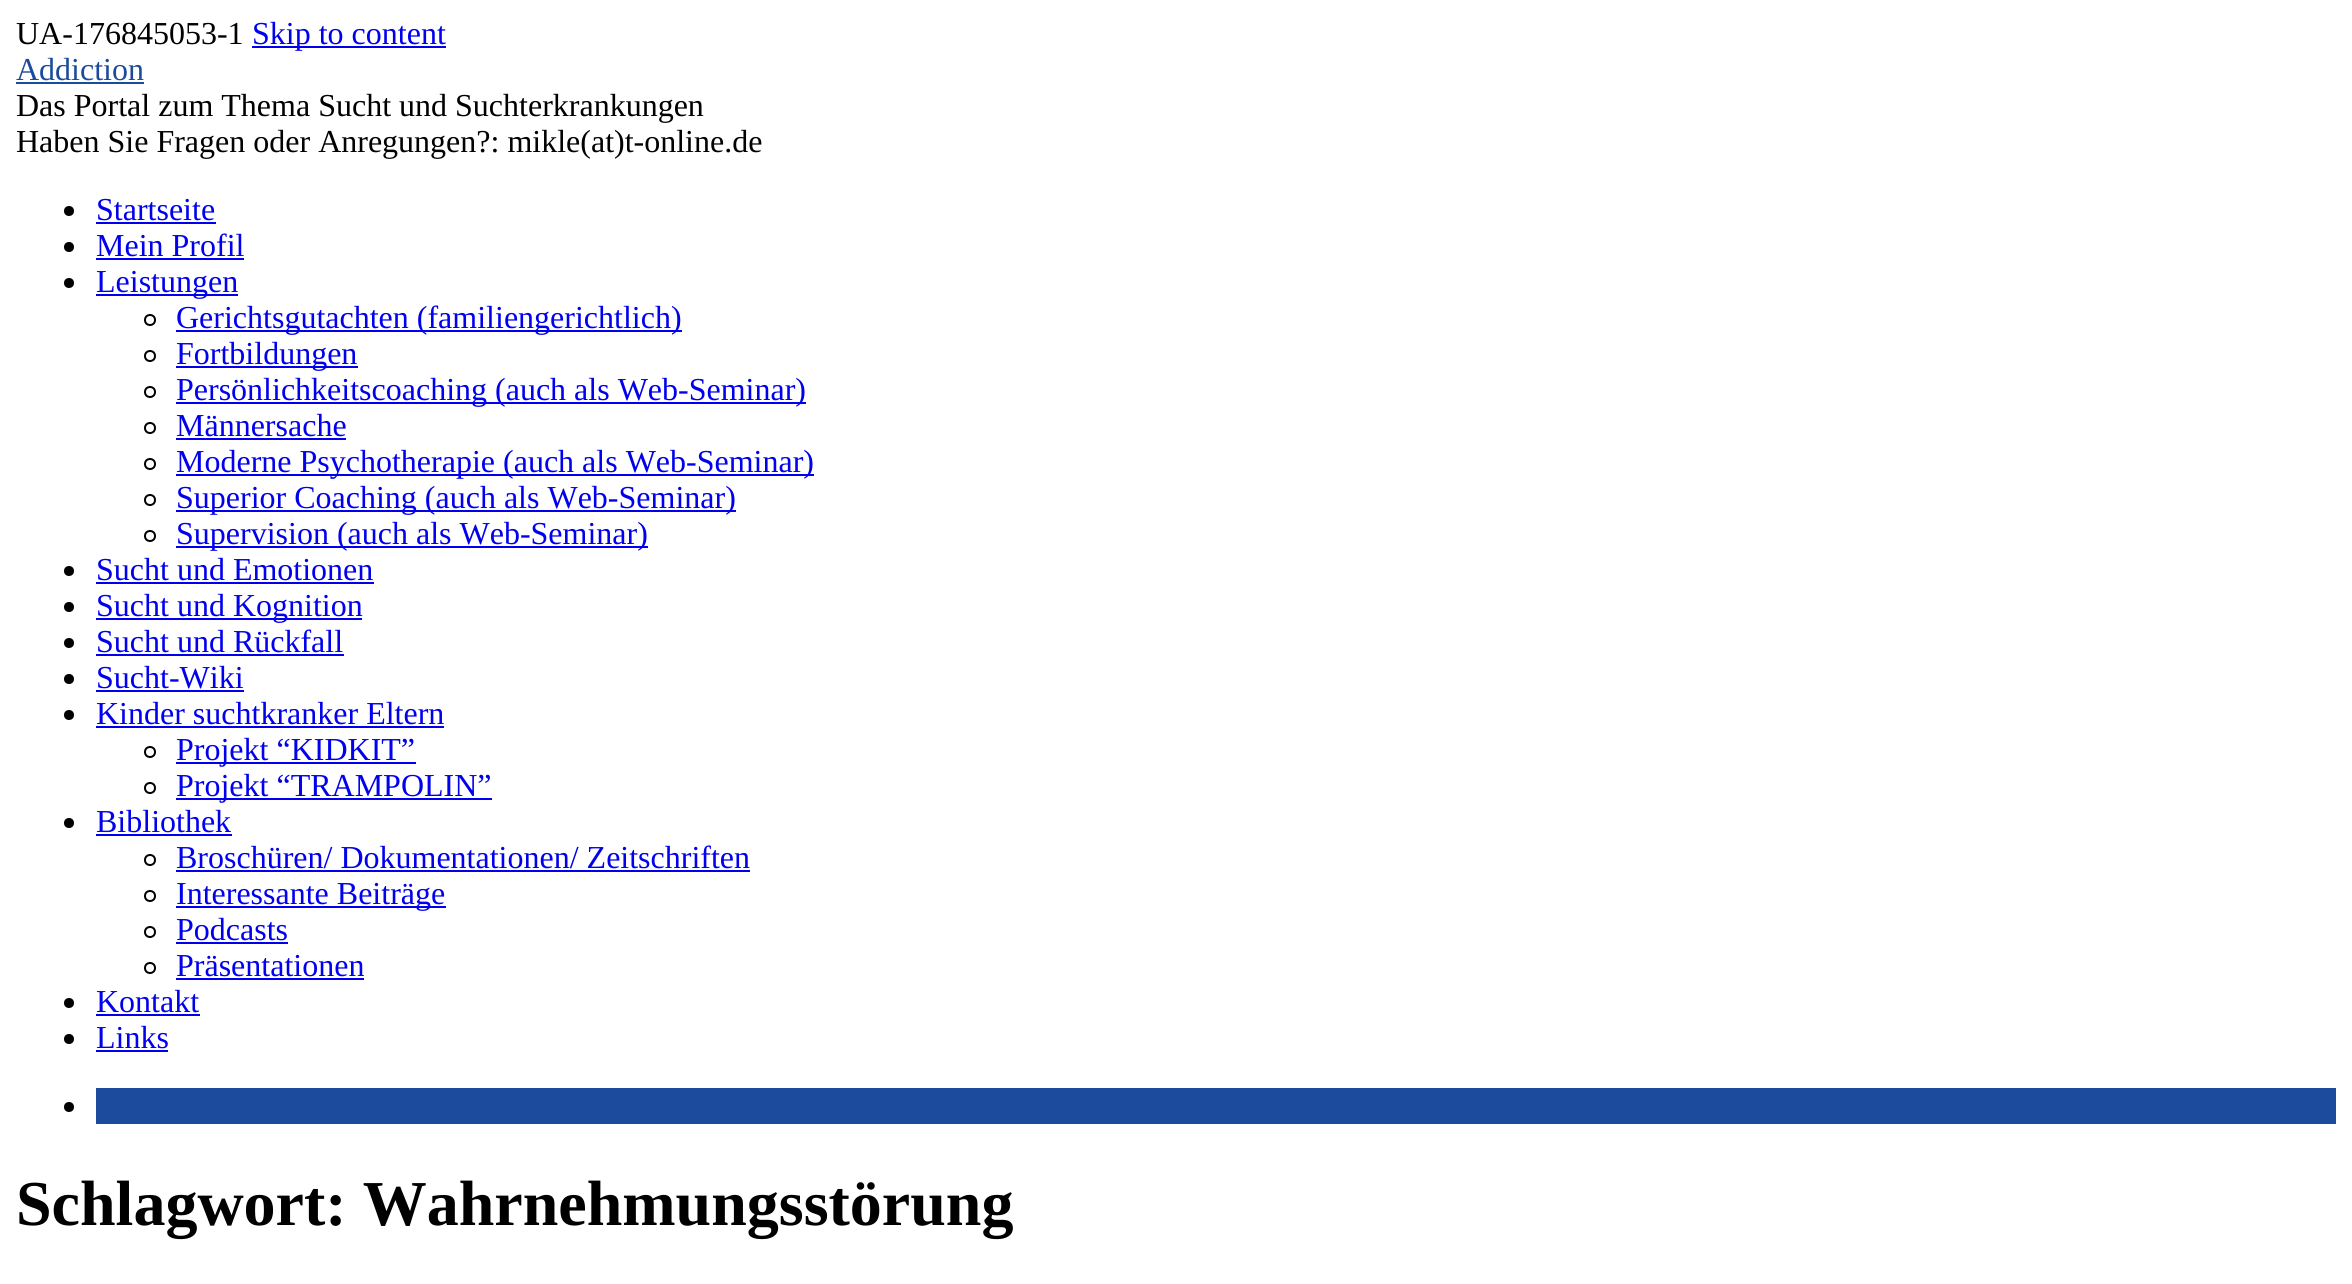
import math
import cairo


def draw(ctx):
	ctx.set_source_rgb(1, 1, 1)
	ctx.paint()
	ctx.select_font_face('Liberation Serif')
	ctx.set_font_size(32)
	ctx.set_source_rgb(0, 0, 0)
	ctx.move_to(16, 44)
	ctx.show_text('UA-176845053-1')
	ctx.set_source_rgb(0, 0, 0.933)
	ctx.rectangle(252, 46, 194, 2)
	ctx.fill()
	ctx.move_to(252, 44)
	ctx.show_text('Skip to content')
	ctx.set_source_rgb(0.11, 0.294, 0.62)
	ctx.move_to(16, 80)
	ctx.show_text('Addiction')
	ctx.rectangle(16, 82, 128, 2)
	ctx.fill()
	ctx.set_source_rgb(0, 0, 0)
	ctx.move_to(16, 116)
	ctx.show_text('Das Portal zum Thema Sucht und Suchterkrankungen')
	ctx.move_to(16, 152)
	ctx.show_text('Haben Sie Fragen oder Anregungen?: mikle(at)t-online.de')
	ctx.new_path()
	ctx.arc(69, 211, 5, 0, 2 * math.pi)
	ctx.fill()
	ctx.set_source_rgb(0, 0, 0.933)
	ctx.move_to(96, 220)
	ctx.show_text('Startseite')
	ctx.rectangle(96, 222, 120, 2)
	ctx.fill()
	ctx.set_source_rgb(0, 0, 0)
	ctx.arc(69, 247, 5, 0, 2 * math.pi)
	ctx.fill()
	ctx.set_source_rgb(0, 0, 0.933)
	ctx.move_to(96, 256)
	ctx.show_text('Mein Profil')
	ctx.rectangle(96, 258, 148, 2)
	ctx.fill()
	ctx.set_source_rgb(0, 0, 0)
	ctx.arc(69, 283, 5, 0, 2 * math.pi)
	ctx.fill()
	ctx.set_source_rgb(0, 0, 0.933)
	ctx.rectangle(96, 294, 142, 2)
	ctx.fill()
	ctx.move_to(96, 292)
	ctx.show_text('Leistungen')
	ctx.new_path()
	ctx.arc(150, 320, 5, 0, 2 * math.pi)
	ctx.set_source_rgb(0, 0, 0)
	ctx.stroke()
	ctx.set_source_rgb(0, 0, 0.933)
	ctx.rectangle(176, 330, 506, 2)
	ctx.fill()
	ctx.move_to(176, 328)
	ctx.show_text('Gerichtsgutachten (familiengerichtlich)')
	ctx.new_path()
	ctx.arc(150, 356, 5, 0, 2 * math.pi)
	ctx.set_source_rgb(0, 0, 0)
	ctx.stroke()
	ctx.set_source_rgb(0, 0, 0.933)
	ctx.rectangle(176, 366, 182, 2)
	ctx.fill()
	ctx.move_to(176, 364)
	ctx.show_text('Fortbildungen')
	ctx.new_path()
	ctx.arc(150, 392, 5, 0, 2 * math.pi)
	ctx.set_source_rgb(0, 0, 0)
	ctx.stroke()
	ctx.set_source_rgb(0, 0, 0.933)
	ctx.rectangle(176, 402, 630, 2)
	ctx.fill()
	ctx.move_to(176, 400)
	ctx.show_text('Persönlichkeitscoaching (auch als Web-Seminar)')
	ctx.new_path()
	ctx.arc(150, 428, 5, 0, 2 * math.pi)
	ctx.set_source_rgb(0, 0, 0)
	ctx.stroke()
	ctx.set_source_rgb(0, 0, 0.933)
	ctx.move_to(176, 436)
	ctx.show_text('Männersache')
	ctx.rectangle(176, 438, 170, 2)
	ctx.fill()
	ctx.arc(150, 464, 5, 0, 2 * math.pi)
	ctx.set_source_rgb(0, 0, 0)
	ctx.stroke()
	ctx.set_source_rgb(0, 0, 0.933)
	ctx.rectangle(176, 474, 638, 2)
	ctx.fill()
	ctx.move_to(176, 472)
	ctx.show_text('Moderne Psychotherapie (auch als Web-Seminar)')
	ctx.new_path()
	ctx.arc(150, 500, 5, 0, 2 * math.pi)
	ctx.set_source_rgb(0, 0, 0)
	ctx.stroke()
	ctx.set_source_rgb(0, 0, 0.933)
	ctx.rectangle(176, 510, 560, 2)
	ctx.fill()
	ctx.move_to(176, 508)
	ctx.show_text('Superior Coaching (auch als Web-Seminar)')
	ctx.new_path()
	ctx.arc(150, 536, 5, 0, 2 * math.pi)
	ctx.set_source_rgb(0, 0, 0)
	ctx.stroke()
	ctx.set_source_rgb(0, 0, 0.933)
	ctx.rectangle(176, 546, 472, 2)
	ctx.fill()
	ctx.move_to(176, 544)
	ctx.show_text('Supervision (auch als Web-Seminar)')
	ctx.set_source_rgb(0, 0, 0)
	ctx.new_path()
	ctx.arc(69, 571, 5, 0, 2 * math.pi)
	ctx.fill()
	ctx.set_source_rgb(0, 0, 0.933)
	ctx.move_to(96, 580)
	ctx.show_text('Sucht und Emotionen')
	ctx.rectangle(96, 582, 278, 2)
	ctx.fill()
	ctx.set_source_rgb(0, 0, 0)
	ctx.arc(69, 607, 5, 0, 2 * math.pi)
	ctx.fill()
	ctx.set_source_rgb(0, 0, 0.933)
	ctx.rectangle(96, 618, 266, 2)
	ctx.fill()
	ctx.move_to(96, 616)
	ctx.show_text('Sucht und Kognition')
	ctx.set_source_rgb(0, 0, 0)
	ctx.new_path()
	ctx.arc(69, 643, 5, 0, 2 * math.pi)
	ctx.fill()
	ctx.set_source_rgb(0, 0, 0.933)
	ctx.move_to(96, 652)
	ctx.show_text('Sucht und Rückfall')
	ctx.rectangle(96, 654, 248, 2)
	ctx.fill()
	ctx.set_source_rgb(0, 0, 0)
	ctx.arc(69, 679, 5, 0, 2 * math.pi)
	ctx.fill()
	ctx.set_source_rgb(0, 0, 0.933)
	ctx.move_to(96, 688)
	ctx.show_text('Sucht-Wiki')
	ctx.rectangle(96, 690, 148, 2)
	ctx.fill()
	ctx.set_source_rgb(0, 0, 0)
	ctx.arc(69, 715, 5, 0, 2 * math.pi)
	ctx.fill()
	ctx.set_source_rgb(0, 0, 0.933)
	ctx.move_to(96, 724)
	ctx.show_text('Kinder suchtkranker Eltern')
	ctx.rectangle(96, 726, 348, 2)
	ctx.fill()
	ctx.arc(150, 752, 5, 0, 2 * math.pi)
	ctx.set_source_rgb(0, 0, 0)
	ctx.stroke()
	ctx.set_source_rgb(0, 0, 0.933)
	ctx.rectangle(176, 762, 240, 2)
	ctx.fill()
	ctx.move_to(176, 760)
	ctx.show_text('Projekt “KIDKIT”')
	ctx.new_path()
	ctx.arc(150, 788, 5, 0, 2 * math.pi)
	ctx.set_source_rgb(0, 0, 0)
	ctx.stroke()
	ctx.set_source_rgb(0, 0, 0.933)
	ctx.rectangle(176, 798, 316, 2)
	ctx.fill()
	ctx.move_to(176, 796)
	ctx.show_text('Projekt “TRAMPOLIN”')
	ctx.set_source_rgb(0, 0, 0)
	ctx.new_path()
	ctx.arc(69, 823, 5, 0, 2 * math.pi)
	ctx.fill()
	ctx.set_source_rgb(0, 0, 0.933)
	ctx.move_to(96, 832)
	ctx.show_text('Bibliothek')
	ctx.rectangle(96, 834, 136, 2)
	ctx.fill()
	ctx.arc(150, 860, 5, 0, 2 * math.pi)
	ctx.set_source_rgb(0, 0, 0)
	ctx.stroke()
	ctx.set_source_rgb(0, 0, 0.933)
	ctx.move_to(176, 868)
	ctx.show_text('Broschüren/ Dokumentationen/ Zeitschriften')
	ctx.rectangle(176, 870, 574, 2)
	ctx.fill()
	ctx.arc(150, 896, 5, 0, 2 * math.pi)
	ctx.set_source_rgb(0, 0, 0)
	ctx.stroke()
	ctx.set_source_rgb(0, 0, 0.933)
	ctx.rectangle(176, 906, 270, 2)
	ctx.fill()
	ctx.move_to(176, 904)
	ctx.show_text('Interessante Beiträge')
	ctx.new_path()
	ctx.arc(150, 932, 5, 0, 2 * math.pi)
	ctx.set_source_rgb(0, 0, 0)
	ctx.stroke()
	ctx.set_source_rgb(0, 0, 0.933)
	ctx.move_to(176, 940)
	ctx.show_text('Podcasts')
	ctx.rectangle(176, 942, 112, 2)
	ctx.fill()
	ctx.arc(150, 968, 5, 0, 2 * math.pi)
	ctx.set_source_rgb(0, 0, 0)
	ctx.stroke()
	ctx.set_source_rgb(0, 0, 0.933)
	ctx.move_to(176, 976)
	ctx.show_text('Präsentationen')
	ctx.rectangle(176, 978, 188, 2)
	ctx.fill()
	ctx.set_source_rgb(0, 0, 0)
	ctx.arc(69, 1003, 5, 0, 2 * math.pi)
	ctx.fill()
	ctx.set_source_rgb(0, 0, 0.933)
	ctx.move_to(96, 1012)
	ctx.show_text('Kontakt')
	ctx.rectangle(96, 1014, 104, 2)
	ctx.fill()
	ctx.set_source_rgb(0, 0, 0)
	ctx.arc(69, 1039, 5, 0, 2 * math.pi)
	ctx.fill()
	ctx.set_source_rgb(0, 0, 0.933)
	ctx.move_to(96, 1048)
	ctx.show_text('Links')
	ctx.rectangle(96, 1050, 72, 2)
	ctx.fill()
	ctx.set_source_rgb(0.11, 0.294, 0.62)
	ctx.rectangle(96, 1088, 2240, 36)
	ctx.fill()
	ctx.set_source_rgb(0, 0, 0)
	ctx.arc(69, 1107, 5, 0, 2 * math.pi)
	ctx.fill()
	ctx.select_font_face('Liberation Serif', cairo.FONT_SLANT_NORMAL, cairo.FONT_WEIGHT_BOLD)
	ctx.set_font_size(64)
	ctx.move_to(16, 1225)
	ctx.show_text('Schlagwort: Wahrnehmungsstörung')


surface = cairo.ImageSurface(cairo.FORMAT_RGB24, 2352, 1284)
ctx = cairo.Context(surface)
options = cairo.FontOptions()
options.set_hint_metrics(cairo.HINT_METRICS_OFF)
options.set_hint_style(cairo.HINT_STYLE_NONE)
ctx.set_font_options(options)
ctx.set_miter_limit(4)
draw(ctx)
surface.write_to_png('image.png')
